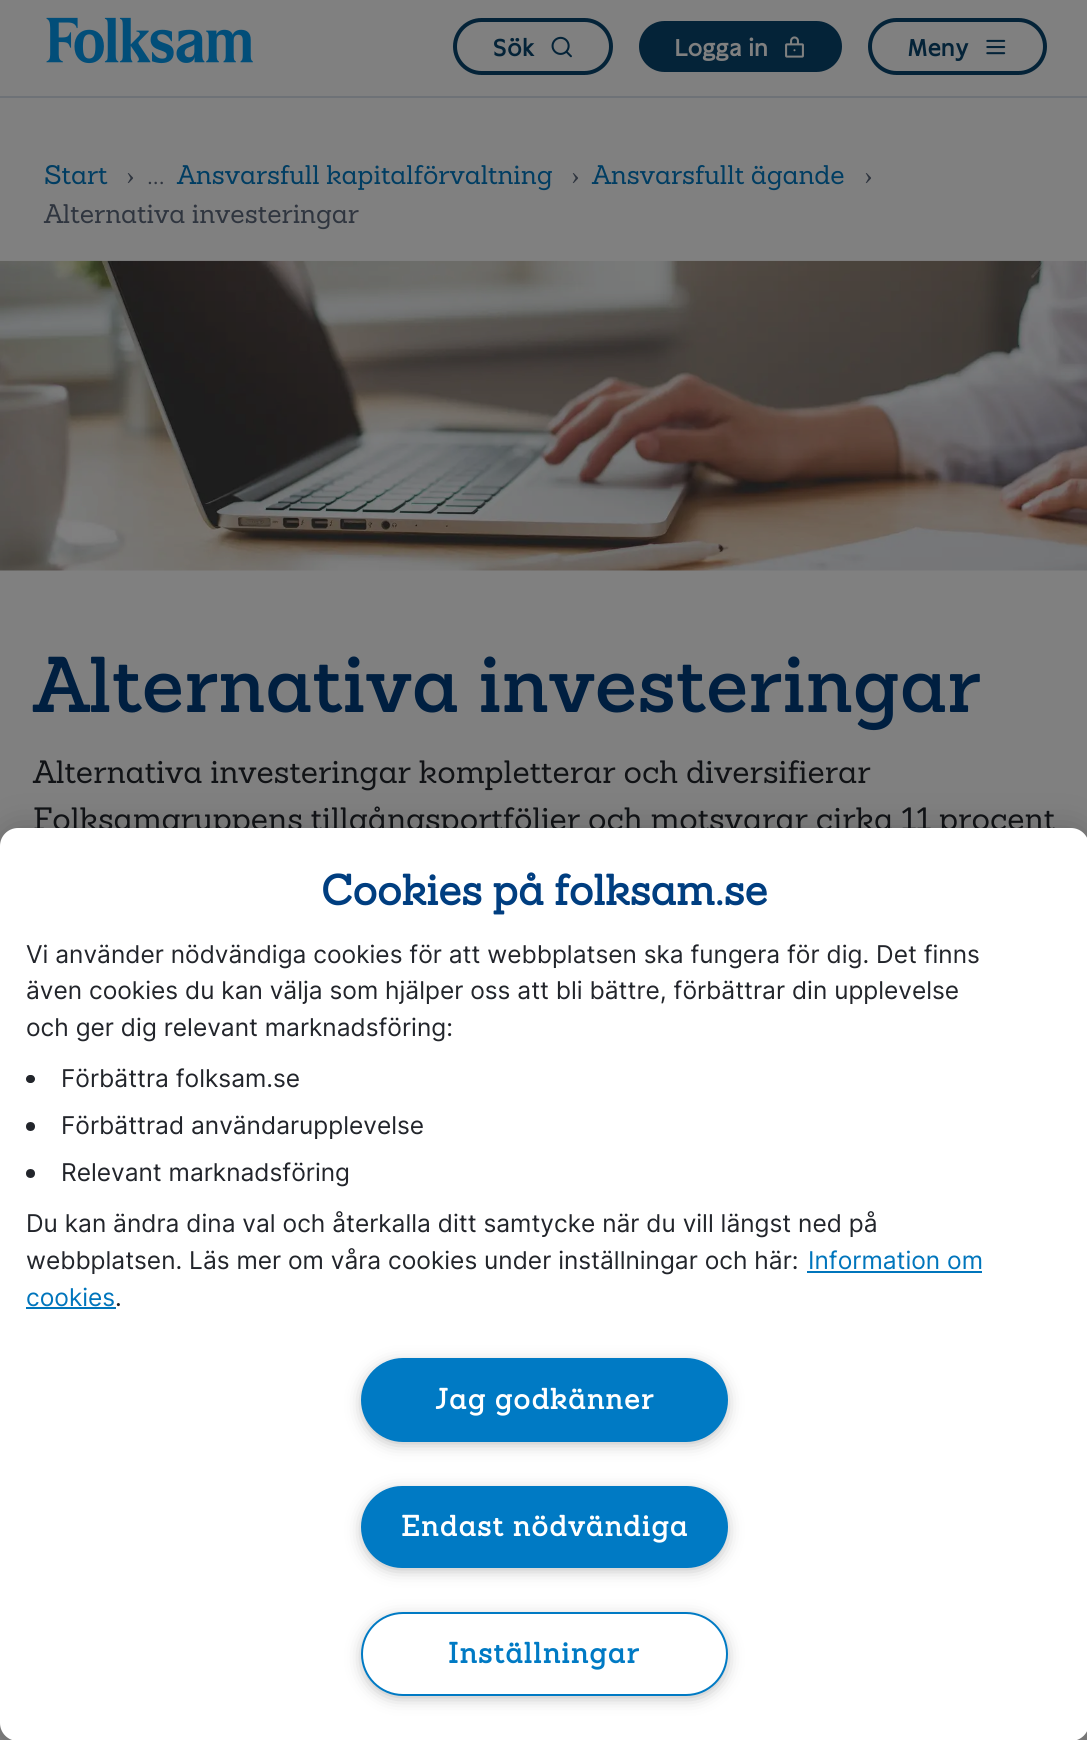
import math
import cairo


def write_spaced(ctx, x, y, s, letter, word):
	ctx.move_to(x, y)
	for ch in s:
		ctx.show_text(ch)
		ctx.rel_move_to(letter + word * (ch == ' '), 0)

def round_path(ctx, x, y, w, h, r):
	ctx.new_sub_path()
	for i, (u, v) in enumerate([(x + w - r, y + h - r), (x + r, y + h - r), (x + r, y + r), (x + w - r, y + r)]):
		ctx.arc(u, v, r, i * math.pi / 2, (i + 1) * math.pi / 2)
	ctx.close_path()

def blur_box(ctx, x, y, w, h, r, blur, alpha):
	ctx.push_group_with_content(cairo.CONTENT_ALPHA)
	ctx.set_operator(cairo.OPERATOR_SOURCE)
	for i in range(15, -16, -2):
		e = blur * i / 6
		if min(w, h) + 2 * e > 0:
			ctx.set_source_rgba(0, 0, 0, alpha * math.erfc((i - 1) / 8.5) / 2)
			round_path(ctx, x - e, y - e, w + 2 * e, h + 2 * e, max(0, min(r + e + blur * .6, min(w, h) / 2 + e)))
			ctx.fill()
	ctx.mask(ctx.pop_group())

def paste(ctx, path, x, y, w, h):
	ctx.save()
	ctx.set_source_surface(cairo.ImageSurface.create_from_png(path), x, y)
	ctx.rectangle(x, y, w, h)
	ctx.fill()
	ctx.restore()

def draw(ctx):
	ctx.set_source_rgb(0.502, 0.502, 0.502)
	ctx.paint()
	ctx.set_source_rgb(0.431, 0.447, 0.467)
	ctx.rectangle(0, 96, 1087, 2)
	ctx.fill()
	paste(ctx, 'media/1.png', 46, 17, 207, 47)
	round_path(ctx, 455, 20, 156, 53, 26.5)
	ctx.set_source_rgb(0.016, 0.137, 0.22)
	ctx.set_line_width(4)
	ctx.stroke()
	ctx.select_font_face('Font', cairo.FONT_SLANT_NORMAL, cairo.FONT_WEIGHT_BOLD)
	ctx.set_font_size(24.5)
	ctx.move_to(492, 56)
	ctx.show_text('Sök')
	paste(ctx, 'media/2.png', 551, 36, 21, 22)
	round_path(ctx, 639, 21, 203, 51, 25.5)
	ctx.fill()
	ctx.set_source_rgb(0.502, 0.502, 0.502)
	ctx.move_to(674, 56)
	ctx.show_text('Logga in')
	paste(ctx, 'media/3.png', 785, 36, 19, 22)
	round_path(ctx, 870, 20, 175, 53, 26.5)
	ctx.set_source_rgb(0.016, 0.137, 0.22)
	ctx.stroke()
	ctx.move_to(907, 56)
	ctx.show_text('Meny')
	paste(ctx, 'media/4.png', 986, 39, 20, 16)
	ctx.select_font_face('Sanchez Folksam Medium')
	ctx.set_font_size(26.25)
	ctx.set_source_rgb(0, 0.239, 0.384)
	ctx.move_to(44, 184)
	ctx.show_text('Start')
	ctx.select_font_face('Liberation Serif')
	ctx.set_source_rgb(0.184, 0.208, 0.247)
	ctx.move_to(126, 184)
	ctx.show_text('›')
	ctx.select_font_face('Sanchez Folksam Medium')
	ctx.move_to(147, 184)
	ctx.show_text('...')
	ctx.set_source_rgb(0, 0.239, 0.384)
	ctx.move_to(177, 184)
	ctx.show_text('Ansvarsfull kapitalförvaltning')
	ctx.select_font_face('Liberation Serif')
	ctx.set_source_rgb(0.184, 0.208, 0.247)
	ctx.move_to(571, 184)
	ctx.show_text('›')
	ctx.select_font_face('Sanchez Folksam Medium')
	ctx.set_source_rgb(0, 0.239, 0.384)
	ctx.move_to(592, 184)
	ctx.show_text('Ansvarsfullt ägande')
	ctx.select_font_face('Liberation Serif')
	ctx.set_source_rgb(0.184, 0.208, 0.247)
	ctx.move_to(864, 184)
	ctx.show_text('›')
	ctx.select_font_face('Sanchez Folksam Medium')
	ctx.move_to(44, 223)
	ctx.show_text('Alternativa investeringar')
	paste(ctx, 'media/5.png', 0, 260, 1087, 311)
	ctx.select_font_face('Sanchez Folksam SemiBold')
	ctx.set_font_size(77)
	ctx.set_source_rgb(0, 0.122, 0.251)
	ctx.move_to(33, 712)
	ctx.show_text('Alternativa investeringar')
	ctx.select_font_face('Sanchez Folksam Medium')
	ctx.set_font_size(31.5)
	ctx.set_source_rgb(0.067, 0.075, 0.086)
	ctx.move_to(33, 783)
	ctx.show_text('Alternativa investeringar kompletterar och diversifierar')
	ctx.move_to(33, 830)
	ctx.show_text('Folksamgruppens tillgångsportföljer och motsvarar cirka 11 procent')
	ctx.set_source_rgb(0, 0, 0)
	blur_box(ctx, 0, 828, 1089, 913, 18, 16, 0.2)
	ctx.set_source_rgb(1, 1, 1)
	round_path(ctx, 0, 828, 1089, 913, 18)
	ctx.fill()
	ctx.select_font_face('Sanchez Folksam', cairo.FONT_SLANT_NORMAL, cairo.FONT_WEIGHT_BOLD)
	ctx.set_font_size(42)
	ctx.set_source_rgb(0, 0.243, 0.502)
	ctx.move_to(321, 905)
	ctx.show_text('Cookies på folksam.se')
	ctx.select_font_face('Inter')
	ctx.set_font_size(24.5)
	ctx.set_source_rgb(0.133, 0.145, 0.169)
	for x, y, s in [
		(26, 963, 'Vi använder nödvändiga cookies för att webbplatsen ska fungera för dig. Det finns'),
		(26, 999, 'även cookies du kan välja som hjälper oss att bli bättre, förbättrar din upplevelse'),
		(26, 1036, 'och ger dig relevant marknadsföring:'),
	]:
		ctx.move_to(x, y)
		ctx.show_text(s)
	round_path(ctx, 26, 1075, 9, 8, 4)
	ctx.fill()
	ctx.move_to(61, 1087)
	ctx.show_text('Förbättra folksam.se')
	ctx.new_path()
	ctx.arc(30.5, 1126.5, 4.5, 0, 2 * math.pi)
	ctx.fill()
	ctx.move_to(61, 1134)
	ctx.show_text('Förbättrad användarupplevelse')
	ctx.new_path()
	ctx.arc(30.5, 1173.5, 4.5, 0, 2 * math.pi)
	ctx.fill()
	for x, y, s in [
		(61, 1181, 'Relevant marknadsföring'),
		(26, 1232, 'Du kan ändra dina val och återkalla ditt samtycke när du vill längst ned på'),
		(26, 1269, 'webbplatsen. Läs mer om våra cookies under inställningar och här:'),
	]:
		ctx.move_to(x, y)
		ctx.show_text(s)
	ctx.set_source_rgb(0, 0.459, 0.737)
	ctx.move_to(808, 1269)
	ctx.show_text('Information om')
	ctx.rectangle(807, 1271, 175, 2)
	ctx.fill()
	ctx.move_to(26, 1306)
	ctx.show_text('cookies')
	ctx.rectangle(26, 1307, 90, 2)
	ctx.fill()
	ctx.set_source_rgb(0.133, 0.145, 0.169)
	ctx.move_to(115, 1306)
	ctx.show_text('.')
	ctx.set_source_rgb(0.6, 0.6, 0.6)
	blur_box(ctx, 366, 1367, 357, 73, 36.5, 9, 1)
	ctx.set_source_rgb(0, 0.478, 0.769)
	round_path(ctx, 362, 1359, 365, 82, 41)
	ctx.fill_preserve()
	ctx.set_line_width(2)
	ctx.stroke()
	ctx.select_font_face('Sanchez Folksam', cairo.FONT_SLANT_NORMAL, cairo.FONT_WEIGHT_BOLD)
	ctx.set_font_size(28.4)
	ctx.set_source_rgb(1, 1, 1)
	write_spaced(ctx, 435, 1409, 'Jag godkänner', 1.4, 0)
	ctx.set_source_rgb(0.6, 0.6, 0.6)
	blur_box(ctx, 366, 1495, 357, 71, 35.5, 9, 1)
	ctx.set_source_rgb(0, 0.478, 0.769)
	round_path(ctx, 362, 1487, 365, 80, 40)
	ctx.fill_preserve()
	ctx.stroke()
	ctx.set_source_rgb(1, 1, 1)
	write_spaced(ctx, 401, 1536, 'Endast nödvändiga', 1.4, 0)
	ctx.set_source_rgb(0.6, 0.6, 0.6)
	blur_box(ctx, 366, 1621, 357, 73, 36.5, 9, 1)
	ctx.set_source_rgb(1, 1, 1)
	round_path(ctx, 362, 1613, 365, 82, 41)
	ctx.fill_preserve()
	ctx.set_source_rgb(0, 0.478, 0.769)
	ctx.stroke()
	write_spaced(ctx, 448, 1663, 'Inställningar', 1.4, 0)


surface = cairo.ImageSurface(cairo.FORMAT_RGB24, 1087, 1740)
ctx = cairo.Context(surface)
options = cairo.FontOptions()
options.set_hint_metrics(cairo.HINT_METRICS_OFF)
options.set_hint_style(cairo.HINT_STYLE_NONE)
ctx.set_font_options(options)
ctx.set_miter_limit(4)
draw(ctx)
surface.write_to_png('image.png')
